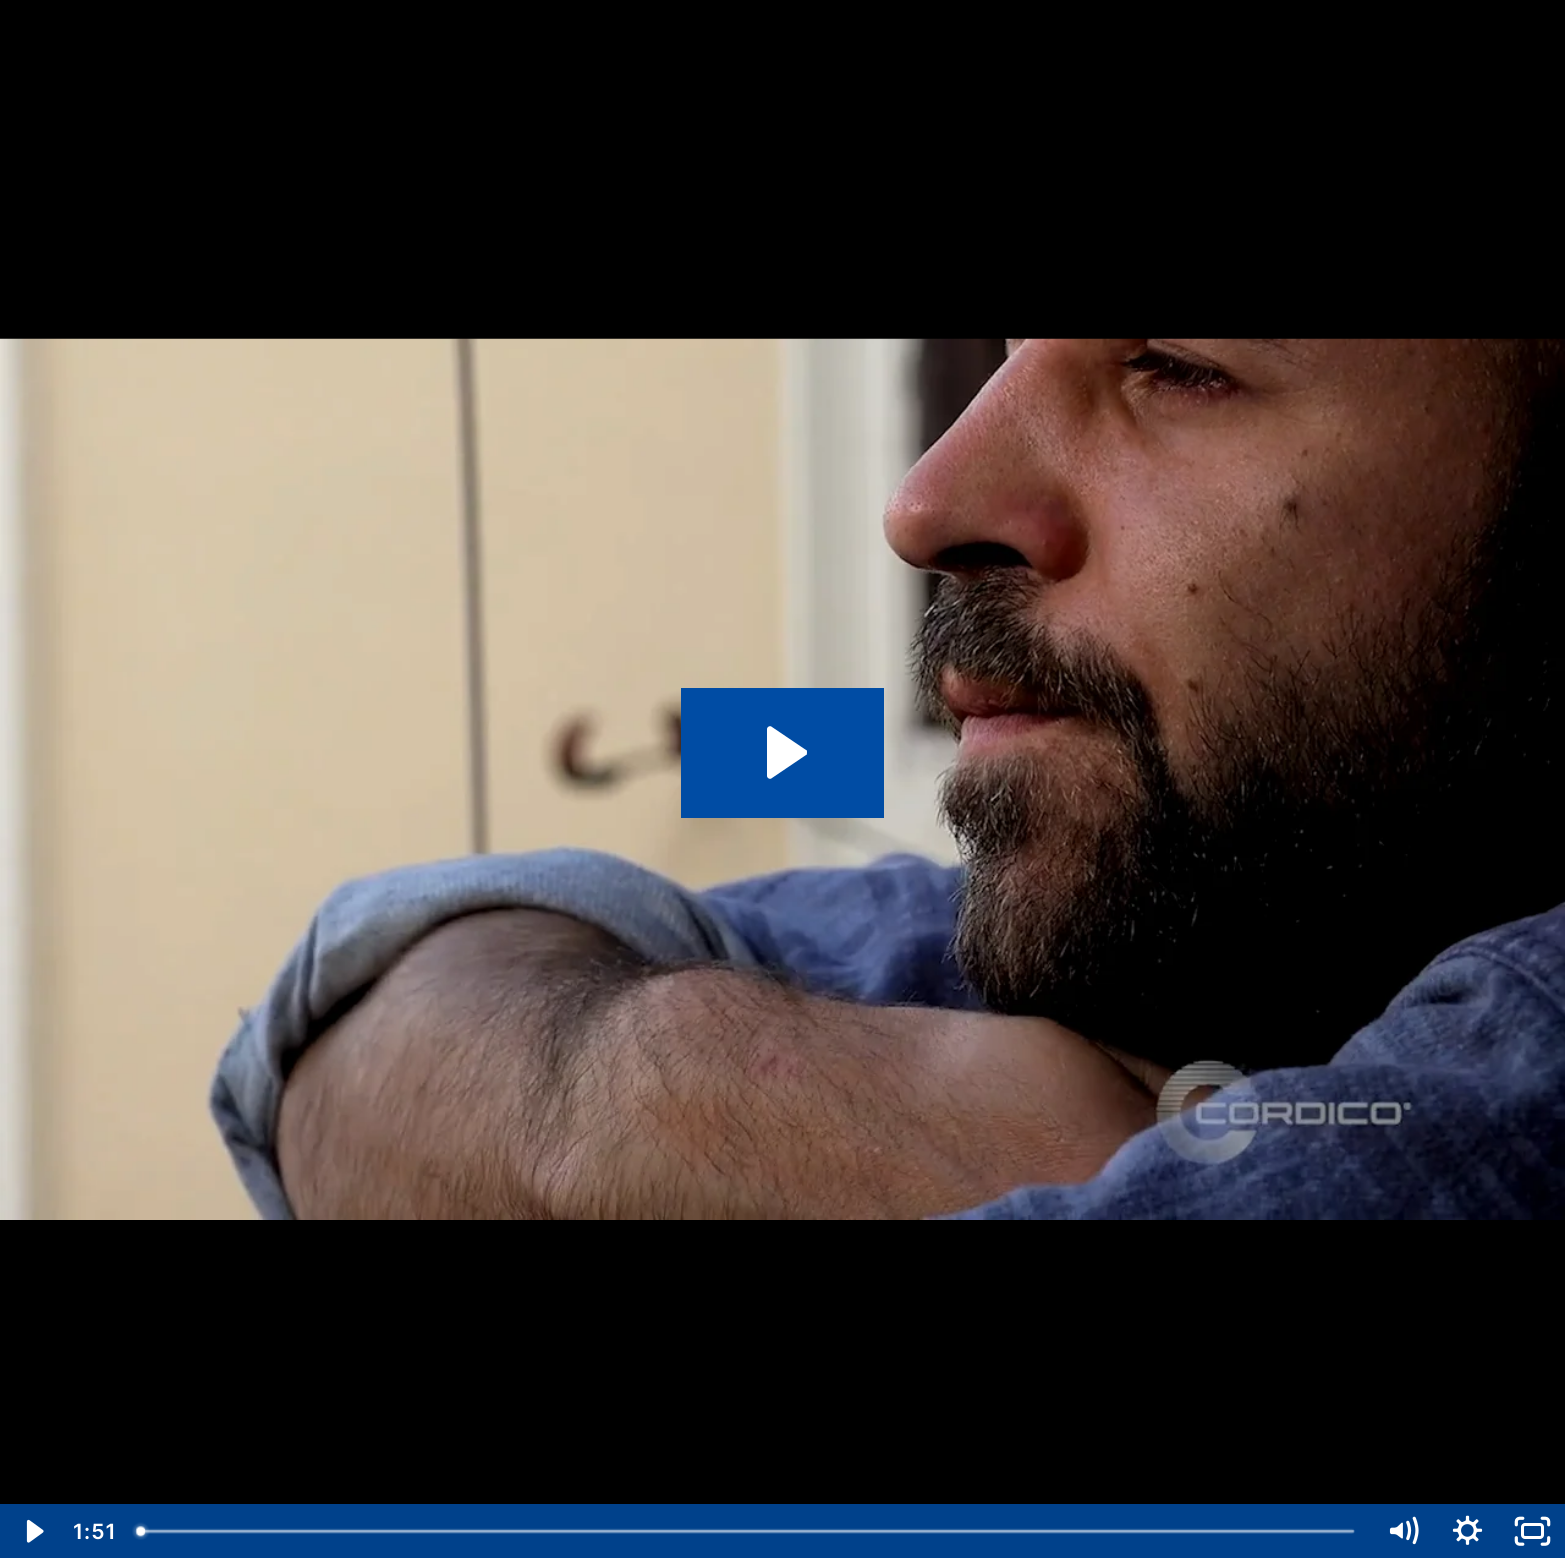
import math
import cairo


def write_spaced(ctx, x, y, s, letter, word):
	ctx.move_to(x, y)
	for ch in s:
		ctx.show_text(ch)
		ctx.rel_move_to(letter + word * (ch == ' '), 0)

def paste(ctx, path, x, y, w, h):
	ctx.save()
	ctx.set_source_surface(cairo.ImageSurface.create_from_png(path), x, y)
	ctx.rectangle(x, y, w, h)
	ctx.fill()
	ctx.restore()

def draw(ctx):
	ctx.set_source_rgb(0, 0, 0)
	ctx.paint()
	paste(ctx, 'media/1.png', 0, 338, 1565, 882)
	ctx.set_source_rgb(0, 0.298, 0.643)
	ctx.rectangle(681, 688, 203, 130)
	ctx.fill()
	ctx.set_source_rgb(1, 1, 1)
	ctx.set_fill_rule(cairo.FILL_RULE_EVEN_ODD)
	ctx.new_path()
	ctx.move_to(772, 727)
	ctx.curve_to(770, 725, 767, 727, 767, 729)
	ctx.line_to(767, 776)
	ctx.curve_to(767, 778, 770, 780, 772, 778)
	ctx.line_to(806, 755)
	ctx.curve_to(807, 755, 807, 754, 807, 752)
	ctx.curve_to(807, 751, 807, 750, 806, 750)
	ctx.close_path()
	ctx.fill()
	ctx.set_source_rgb(0, 0.255, 0.545)
	ctx.rectangle(0, 1504, 1565, 54)
	ctx.fill()
	paste(ctx, 'media/2.png', 26, 1519, 18, 24)
	ctx.select_font_face('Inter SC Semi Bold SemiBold')
	ctx.set_font_size(21)
	ctx.set_source_rgb(1, 1, 1)
	write_spaced(ctx, 73, 1539, '1:51', 1, 0)
	paste(ctx, 'media/3.png', 132, 1522, 1223, 18)
	paste(ctx, 'media/4.png', 1389, 1516, 30, 29)
	paste(ctx, 'media/5.png', 1452, 1515, 31, 30)
	paste(ctx, 'media/6.png', 1514, 1516, 37, 30)


surface = cairo.ImageSurface(cairo.FORMAT_RGB24, 1565, 1558)
ctx = cairo.Context(surface)
options = cairo.FontOptions()
options.set_hint_metrics(cairo.HINT_METRICS_OFF)
options.set_hint_style(cairo.HINT_STYLE_NONE)
ctx.set_font_options(options)
ctx.set_miter_limit(4)
draw(ctx)
surface.write_to_png('image.png')
